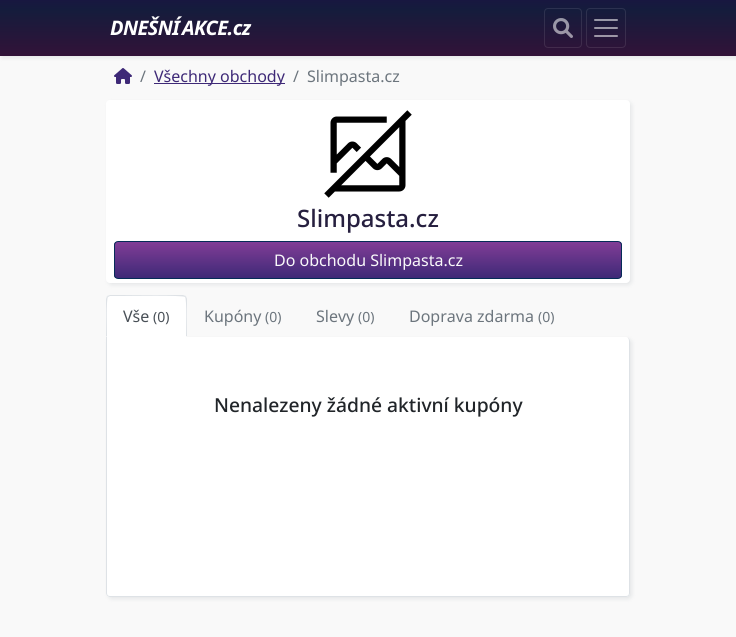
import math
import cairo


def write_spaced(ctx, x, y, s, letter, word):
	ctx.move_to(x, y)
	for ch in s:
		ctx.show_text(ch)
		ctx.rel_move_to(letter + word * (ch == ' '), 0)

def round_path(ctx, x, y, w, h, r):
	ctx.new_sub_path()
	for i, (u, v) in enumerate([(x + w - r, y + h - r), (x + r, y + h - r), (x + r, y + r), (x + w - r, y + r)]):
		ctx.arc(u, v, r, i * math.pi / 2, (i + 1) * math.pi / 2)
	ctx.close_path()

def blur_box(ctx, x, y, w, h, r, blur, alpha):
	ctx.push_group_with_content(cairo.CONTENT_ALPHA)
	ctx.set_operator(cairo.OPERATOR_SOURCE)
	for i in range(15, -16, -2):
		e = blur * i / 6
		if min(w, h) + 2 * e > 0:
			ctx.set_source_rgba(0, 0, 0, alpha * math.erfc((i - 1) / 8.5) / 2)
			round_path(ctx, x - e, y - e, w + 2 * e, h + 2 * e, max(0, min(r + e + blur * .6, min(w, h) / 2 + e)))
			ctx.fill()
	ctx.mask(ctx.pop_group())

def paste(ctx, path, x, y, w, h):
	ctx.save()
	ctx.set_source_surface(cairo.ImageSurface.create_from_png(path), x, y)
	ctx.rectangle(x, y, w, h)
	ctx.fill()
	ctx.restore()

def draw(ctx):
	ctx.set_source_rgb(0.976, 0.976, 0.976)
	ctx.paint()
	ctx.set_source_rgb(0.588, 0.62, 0.651)
	blur_box(ctx, 2, 2, 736, 56, 0, 2, 0.2)
	gradient = cairo.LinearGradient(368, 56, 368, 0)
	gradient.add_color_stop_rgba(0, 0.196, 0.071, 0.22, 1)
	gradient.add_color_stop_rgba(0.82, 0.082, 0.11, 0.235, 1)
	gradient.add_color_stop_rgba(1, 0.094, 0.09, 0.251, 1)
	ctx.set_source(gradient)
	ctx.rectangle(0, 0, 736, 56)
	ctx.fill()
	ctx.select_font_face('Noto Sans', cairo.FONT_SLANT_ITALIC, cairo.FONT_WEIGHT_BOLD)
	ctx.set_font_size(20)
	ctx.set_source_rgb(1, 1, 1)
	write_spaced(ctx, 110, 35, 'DNEŠNÍ AKCE.cz', -0.6, -2)
	round_path(ctx, 544.5, 8.5, 37, 39, 3.5)
	ctx.set_source_rgba(1, 1, 1, 0.1)
	ctx.set_line_width(1)
	ctx.stroke()
	paste(ctx, 'media/1.png', 553, 18, 20, 20)
	round_path(ctx, 586.5, 8.5, 39, 39, 3.5)
	ctx.stroke()
	paste(ctx, 'media/2.png', 594, 19, 24, 18)
	paste(ctx, 'media/3.png', 114, 68, 18, 16)
	ctx.select_font_face('Noto Sans')
	ctx.set_font_size(16)
	ctx.set_source_rgb(0.424, 0.459, 0.49)
	ctx.move_to(140, 82)
	ctx.show_text('/')
	ctx.set_source_rgb(0.243, 0.161, 0.467)
	ctx.rectangle(154, 83, 131, 1)
	ctx.fill()
	ctx.move_to(154, 82)
	ctx.show_text('Všechny obchody')
	ctx.set_source_rgb(0.424, 0.459, 0.49)
	ctx.move_to(293, 82)
	ctx.show_text('/')
	ctx.move_to(307, 82)
	ctx.show_text('Slimpasta.cz')
	ctx.set_source_rgb(0.588, 0.62, 0.651)
	blur_box(ctx, 108, 102, 524, 183, 4, 2, 0.2)
	ctx.set_source_rgb(1, 1, 1)
	round_path(ctx, 106, 100, 524, 183, 4)
	ctx.fill()
	paste(ctx, 'media/4.png', 324, 110, 88, 88)
	ctx.select_font_face('Noto Sans Medium')
	ctx.set_font_size(24)
	ctx.set_source_rgb(0.149, 0.122, 0.247)
	ctx.move_to(297, 227)
	ctx.show_text('Slimpasta.cz')
	ctx.save()
	round_path(ctx, 114, 241, 508, 38, 4)
	ctx.clip()
	gradient = cairo.LinearGradient(368, 278, 368, 242)
	gradient.add_color_stop_rgba(0, 0.243, 0.161, 0.467, 1)
	gradient.add_color_stop_rgba(1, 0.506, 0.239, 0.588, 1)
	ctx.set_source(gradient)
	ctx.rectangle(114, 242, 508, 36)
	ctx.fill()
	ctx.restore()
	round_path(ctx, 114.5, 241.5, 507, 37, 3.5)
	ctx.set_source_rgb(0.02, 0.173, 0.341)
	ctx.stroke()
	ctx.select_font_face('Noto Sans')
	ctx.set_font_size(16)
	ctx.set_source_rgb(0.973, 0.976, 0.98)
	ctx.move_to(274, 266)
	ctx.show_text('Do obchodu Slimpasta.cz')
	ctx.set_source_rgb(0.588, 0.62, 0.651)
	blur_box(ctx, 108, 339, 524, 260, 4, 2, 0.2)
	ctx.set_source_rgb(1, 1, 1)
	ctx.new_path()
	ctx.move_to(110, 295)
	ctx.line_to(183, 295)
	ctx.curve_to(185, 295, 187, 297, 187, 299)
	ctx.line_to(187, 337)
	ctx.line_to(106, 337)
	ctx.line_to(106, 299)
	ctx.curve_to(106, 297, 108, 295, 110, 295)
	ctx.close_path()
	ctx.fill()
	ctx.set_source_rgb(0.871, 0.886, 0.902)
	ctx.new_path()
	ctx.move_to(110, 295)
	ctx.line_to(107, 296)
	ctx.line_to(108, 297)
	ctx.line_to(110, 296)
	ctx.line_to(122, 296)
	ctx.curve_to(129, 296, 183, 295, 185, 297)
	ctx.line_to(186, 296)
	ctx.line_to(183, 295)
	ctx.close_path()
	ctx.fill()
	ctx.new_path()
	ctx.move_to(187, 337)
	ctx.line_to(187, 299)
	ctx.curve_to(187, 298, 186, 297, 186, 296)
	ctx.line_to(185, 297)
	ctx.curve_to(187, 299, 186, 331, 186, 336)
	ctx.close_path()
	ctx.fill()
	ctx.set_source_rgb(1, 1, 1)
	ctx.new_path()
	ctx.move_to(187, 337)
	ctx.line_to(186, 336)
	ctx.line_to(107, 336)
	ctx.line_to(106, 337)
	ctx.close_path()
	ctx.fill()
	ctx.set_source_rgb(0.871, 0.886, 0.902)
	ctx.new_path()
	ctx.move_to(106, 337)
	ctx.line_to(107, 336)
	ctx.curve_to(107, 331, 106, 299, 108, 297)
	ctx.line_to(107, 296)
	ctx.line_to(106, 299)
	ctx.close_path()
	ctx.fill()
	ctx.set_source_rgb(0.286, 0.314, 0.341)
	ctx.move_to(123, 322)
	ctx.show_text('Vše')
	ctx.set_font_size(14)
	ctx.move_to(153, 322)
	ctx.show_text('(0)')
	ctx.set_font_size(16)
	ctx.set_source_rgb(0.424, 0.459, 0.49)
	ctx.move_to(204, 322)
	ctx.show_text('Kupóny')
	ctx.set_font_size(14)
	ctx.move_to(265, 322)
	ctx.show_text('(0)')
	ctx.set_font_size(16)
	ctx.move_to(316, 322)
	ctx.show_text('Slevy')
	ctx.set_font_size(14)
	ctx.move_to(358, 322)
	ctx.show_text('(0)')
	ctx.set_font_size(16)
	ctx.move_to(409, 322)
	ctx.show_text('Doprava zdarma')
	ctx.set_font_size(14)
	ctx.move_to(538, 322)
	ctx.show_text('(0)')
	ctx.set_source_rgb(1, 1, 1)
	ctx.new_path()
	ctx.move_to(106, 337)
	ctx.line_to(626, 337)
	ctx.curve_to(628, 337, 630, 339, 630, 341)
	ctx.line_to(630, 593)
	ctx.curve_to(630, 595, 628, 597, 626, 597)
	ctx.line_to(110, 597)
	ctx.curve_to(108, 597, 106, 595, 106, 593)
	ctx.close_path()
	ctx.fill()
	ctx.set_source_rgb(0.871, 0.886, 0.902)
	ctx.set_fill_rule(cairo.FILL_RULE_EVEN_ODD)
	ctx.new_path()
	ctx.move_to(106, 337)
	ctx.line_to(626, 337)
	ctx.curve_to(628, 337, 630, 339, 630, 341)
	ctx.line_to(630, 593)
	ctx.curve_to(630, 595, 628, 597, 626, 597)
	ctx.line_to(110, 597)
	ctx.curve_to(108, 597, 106, 595, 106, 593)
	ctx.close_path()
	ctx.move_to(107, 337)
	ctx.line_to(626, 337)
	ctx.curve_to(628, 337, 629, 339, 629, 341)
	ctx.line_to(629, 593)
	ctx.curve_to(629, 595, 628, 596, 626, 596)
	ctx.line_to(110, 596)
	ctx.curve_to(108, 596, 107, 595, 107, 593)
	ctx.close_path()
	ctx.fill()
	ctx.select_font_face('Noto Sans Medium')
	ctx.set_font_size(19.25)
	ctx.set_source_rgb(0.129, 0.145, 0.161)
	ctx.move_to(214, 412)
	ctx.show_text('Nenalezeny žádné aktivní kupóny')


surface = cairo.ImageSurface(cairo.FORMAT_RGB24, 736, 637)
ctx = cairo.Context(surface)
options = cairo.FontOptions()
options.set_hint_metrics(cairo.HINT_METRICS_OFF)
options.set_hint_style(cairo.HINT_STYLE_NONE)
ctx.set_font_options(options)
ctx.set_miter_limit(4)
draw(ctx)
surface.write_to_png('image.png')
